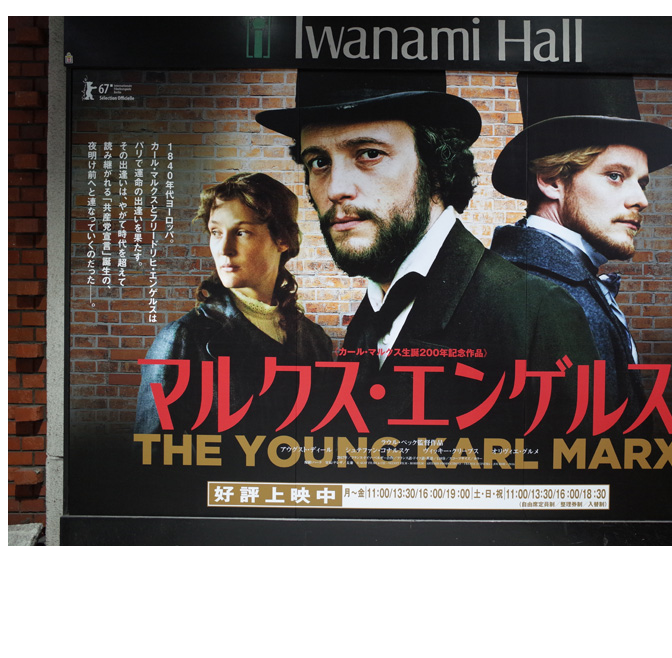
import math
import cairo


def paste(ctx, path, x, y, w, h):
	ctx.save()
	ctx.set_source_surface(cairo.ImageSurface.create_from_png(path), x, y)
	ctx.rectangle(x, y, w, h)
	ctx.fill()
	ctx.restore()

def draw(ctx):
	ctx.set_source_rgb(1, 1, 1)
	ctx.paint()
	paste(ctx, 'media/1.png', 8, 16, 664, 530)


surface = cairo.ImageSurface(cairo.FORMAT_RGB24, 672, 658)
ctx = cairo.Context(surface)
options = cairo.FontOptions()
options.set_hint_metrics(cairo.HINT_METRICS_OFF)
options.set_hint_style(cairo.HINT_STYLE_NONE)
ctx.set_font_options(options)
ctx.set_miter_limit(4)
draw(ctx)
surface.write_to_png('image.png')
